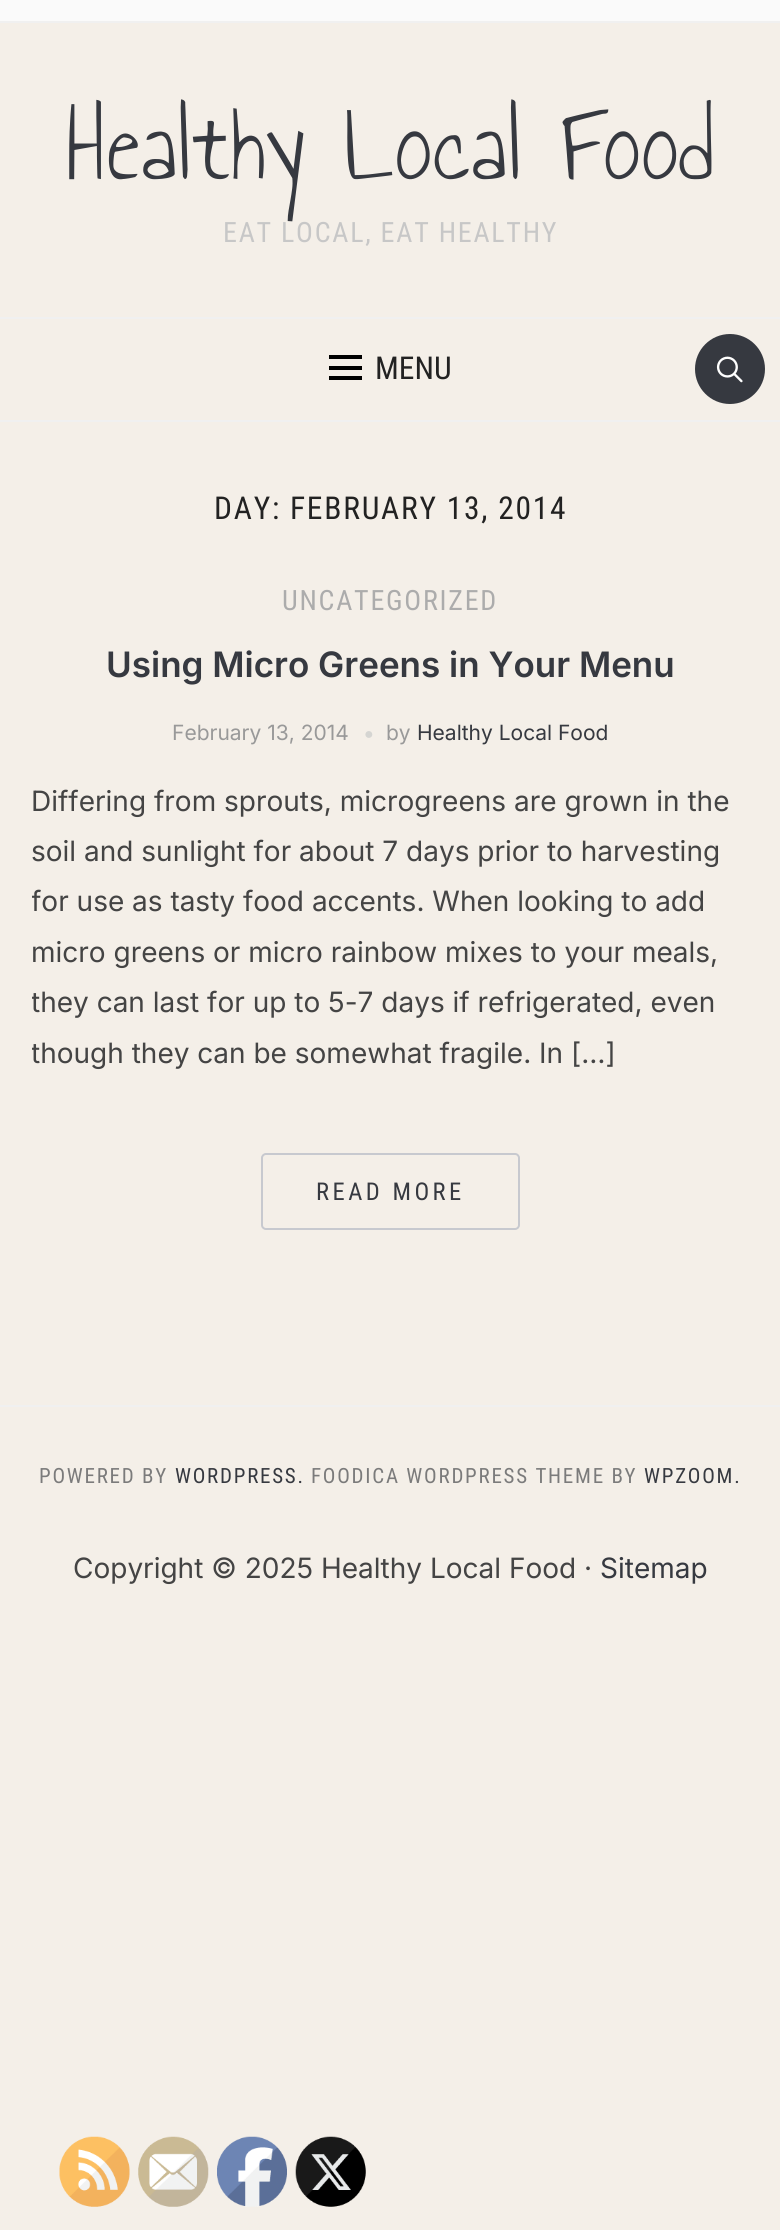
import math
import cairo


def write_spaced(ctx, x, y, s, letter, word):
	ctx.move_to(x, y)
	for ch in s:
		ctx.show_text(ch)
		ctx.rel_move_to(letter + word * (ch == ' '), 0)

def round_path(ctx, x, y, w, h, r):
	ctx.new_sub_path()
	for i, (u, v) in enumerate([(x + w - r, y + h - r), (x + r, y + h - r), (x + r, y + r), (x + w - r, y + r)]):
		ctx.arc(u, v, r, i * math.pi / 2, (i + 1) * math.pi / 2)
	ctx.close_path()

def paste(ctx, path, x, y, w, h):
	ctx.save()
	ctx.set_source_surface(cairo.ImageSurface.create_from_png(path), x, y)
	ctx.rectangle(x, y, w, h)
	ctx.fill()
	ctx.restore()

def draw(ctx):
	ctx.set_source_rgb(0.957, 0.937, 0.91)
	ctx.paint()
	ctx.set_source_rgb(0.98, 0.98, 0.98)
	ctx.rectangle(0, 0, 780, 21)
	ctx.fill()
	ctx.set_source_rgb(0.941, 0.941, 0.941)
	ctx.rectangle(0, 21, 780, 2)
	ctx.fill()
	ctx.select_font_face('Annie Use Your Telescope')
	ctx.set_font_size(105)
	ctx.set_source_rgb(0.212, 0.224, 0.251)
	ctx.move_to(67, 179)
	ctx.show_text('Healthy Local Food')
	ctx.select_font_face('Roboto Condensed')
	ctx.set_font_size(28)
	ctx.set_source_rgb(0.78, 0.78, 0.78)
	write_spaced(ctx, 223, 242, 'EAT LOCAL, EAT HEALTHY', 1.75, 0)
	ctx.set_source_rgb(0.941, 0.941, 0.941)
	ctx.rectangle(0, 317, 780, 2)
	ctx.rectangle(0, 420, 780, 2)
	ctx.fill()
	ctx.set_source_rgb(0, 0, 0)
	ctx.rectangle(329, 355, 33, 4)
	ctx.rectangle(329, 366, 33, 4)
	ctx.rectangle(329, 376, 33, 4)
	ctx.fill()
	ctx.set_font_size(31.5)
	ctx.set_source_rgb(0.133, 0.133, 0.133)
	ctx.move_to(375, 379)
	ctx.show_text('MENU')
	ctx.set_source_rgb(0.212, 0.224, 0.251)
	ctx.new_path()
	ctx.arc(730, 369, 35, 0, 2 * math.pi)
	ctx.fill()
	paste(ctx, 'media/1.png', 716, 356, 27, 27)
	ctx.set_source_rgb(0.133, 0.133, 0.133)
	write_spaced(ctx, 214, 519, 'DAY: FEBRUARY 13, 2014', 1.75, 0)
	ctx.set_font_size(28)
	ctx.set_source_rgb(0.675, 0.675, 0.675)
	write_spaced(ctx, 282, 610, 'UNCATEGORIZED', 1.75, 0)
	ctx.select_font_face('Inter SemiBold')
	ctx.set_font_size(35)
	ctx.set_source_rgb(0.212, 0.224, 0.251)
	ctx.move_to(106, 677)
	ctx.show_text('Using Micro Greens in Your Menu')
	ctx.select_font_face('Inter')
	ctx.set_font_size(21)
	ctx.set_source_rgb(0.6, 0.6, 0.6)
	ctx.move_to(172, 740)
	ctx.show_text('February 13, 2014')
	ctx.select_font_face('Liberation Sans')
	ctx.set_font_size(16)
	ctx.set_source_rgb(0.835, 0.835, 0.824)
	ctx.move_to(364, 739)
	ctx.show_text('●')
	ctx.select_font_face('Inter')
	ctx.set_font_size(21)
	ctx.set_source_rgb(0.6, 0.6, 0.6)
	ctx.move_to(386, 740)
	ctx.show_text('by')
	ctx.set_source_rgb(0.212, 0.224, 0.251)
	ctx.move_to(417, 740)
	ctx.show_text('Healthy Local Food')
	ctx.set_font_size(28)
	ctx.set_source_rgb(0.267, 0.267, 0.267)
	ctx.move_to(31, 811)
	ctx.show_text('Differing from sprouts, microgreens are grown in the')
	ctx.move_to(31, 861)
	ctx.show_text('soil and sunlight for about 7 days prior to harvesting')
	ctx.save()
	ctx.rectangle(32, 578, 717, 705)
	ctx.clip()
	ctx.move_to(31, 911)
	ctx.show_text('for use as tasty food accents. When looking to add')
	ctx.restore()
	ctx.move_to(31, 962)
	ctx.show_text('micro greens or micro rainbow mixes to your meals,')
	ctx.save()
	ctx.rectangle(32, 578, 717, 705)
	ctx.clip()
	ctx.move_to(31, 1012)
	ctx.show_text('they can last for up to 5-7 days if refrigerated, even')
	ctx.move_to(31, 1063)
	ctx.show_text('though they can be somewhat fragile. In […]')
	ctx.restore()
	round_path(ctx, 262, 1154, 257, 75, 4)
	ctx.set_source_rgb(0.78, 0.788, 0.812)
	ctx.stroke()
	ctx.select_font_face('Roboto Condensed')
	ctx.set_font_size(24.5)
	ctx.set_source_rgb(0.212, 0.224, 0.251)
	write_spaced(ctx, 316, 1200, 'READ MORE', 3.5, 0)
	ctx.set_source_rgb(0.941, 0.941, 0.941)
	ctx.rectangle(0, 1405, 780, 2)
	ctx.fill()
	ctx.set_font_size(21)
	ctx.set_source_rgb(0.482, 0.482, 0.482)
	write_spaced(ctx, 39, 1483, 'POWERED BY', 1.75, 0)
	ctx.set_source_rgb(0.212, 0.224, 0.251)
	write_spaced(ctx, 175, 1483, 'WORDPRESS.', 1.75, 0)
	ctx.set_source_rgb(0.482, 0.482, 0.482)
	write_spaced(ctx, 311, 1483, 'FOODICA WORDPRESS THEME BY', 1.75, 0)
	ctx.set_source_rgb(0.212, 0.224, 0.251)
	write_spaced(ctx, 644, 1483, 'WPZOOM.', 1.75, 0)
	ctx.select_font_face('Inter')
	ctx.set_font_size(28)
	ctx.set_source_rgb(0.267, 0.267, 0.267)
	ctx.move_to(73, 1578)
	ctx.show_text('Copyright © 2025 Healthy Local Food ·')
	ctx.set_source_rgb(0.212, 0.224, 0.251)
	ctx.move_to(600, 1578)
	ctx.show_text('Sitemap')
	paste(ctx, 'media/2.png', 59, 2136, 71, 71)
	paste(ctx, 'media/3.png', 138, 2136, 71, 71)
	paste(ctx, 'media/4.png', 217, 2136, 70, 71)
	paste(ctx, 'media/5.png', 295, 2136, 71, 71)


surface = cairo.ImageSurface(cairo.FORMAT_RGB24, 780, 2230)
ctx = cairo.Context(surface)
options = cairo.FontOptions()
options.set_hint_metrics(cairo.HINT_METRICS_OFF)
options.set_hint_style(cairo.HINT_STYLE_NONE)
ctx.set_font_options(options)
ctx.set_miter_limit(4)
draw(ctx)
surface.write_to_png('image.png')
